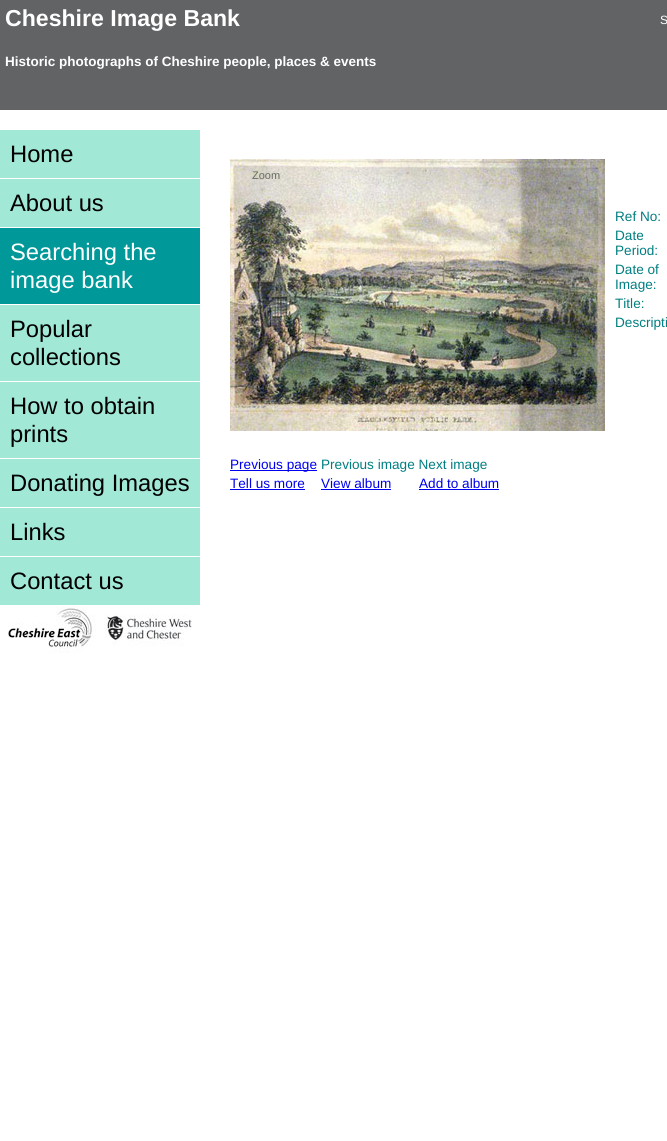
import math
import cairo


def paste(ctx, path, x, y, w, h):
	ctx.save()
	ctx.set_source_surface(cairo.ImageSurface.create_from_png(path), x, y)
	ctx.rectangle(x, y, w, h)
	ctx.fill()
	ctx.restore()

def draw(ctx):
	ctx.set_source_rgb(1, 1, 1)
	ctx.paint()
	ctx.set_source_rgb(0.384, 0.388, 0.396)
	ctx.rectangle(0, 0, 667, 110)
	ctx.fill()
	ctx.select_font_face('Liberation Sans', cairo.FONT_SLANT_NORMAL, cairo.FONT_WEIGHT_BOLD)
	ctx.set_font_size(23.1)
	ctx.set_source_rgb(1, 1, 1)
	ctx.move_to(5, 26)
	ctx.show_text('Cheshire Image Bank')
	ctx.select_font_face('Liberation Sans')
	ctx.set_font_size(12)
	ctx.move_to(660, 24)
	ctx.show_text('S')
	ctx.select_font_face('Liberation Sans', cairo.FONT_SLANT_NORMAL, cairo.FONT_WEIGHT_BOLD)
	ctx.set_font_size(13.5)
	ctx.move_to(5, 66)
	ctx.show_text('Historic photographs of Cheshire people, places & events')
	ctx.set_source_rgb(0.631, 0.91, 0.839)
	ctx.rectangle(0, 130, 200, 48)
	ctx.fill()
	ctx.select_font_face('Liberation Sans')
	ctx.set_font_size(23.75)
	ctx.set_source_rgb(0, 0, 0)
	ctx.move_to(10, 162)
	ctx.show_text('Home')
	ctx.set_source_rgb(0.631, 0.91, 0.839)
	ctx.rectangle(0, 179, 200, 48)
	ctx.fill()
	ctx.set_source_rgb(0, 0, 0)
	ctx.move_to(10, 211)
	ctx.show_text('About us')
	ctx.set_source_rgb(0, 0.596, 0.6)
	ctx.rectangle(0, 228, 200, 76)
	ctx.fill()
	ctx.set_source_rgb(1, 1, 1)
	ctx.move_to(10, 260)
	ctx.show_text('Searching the')
	ctx.move_to(10, 288)
	ctx.show_text('image bank')
	ctx.set_source_rgb(0.631, 0.91, 0.839)
	ctx.rectangle(0, 305, 200, 76)
	ctx.fill()
	ctx.set_source_rgb(0, 0, 0)
	ctx.move_to(10, 337)
	ctx.show_text('Popular')
	ctx.move_to(10, 365)
	ctx.show_text('collections')
	ctx.set_source_rgb(0.631, 0.91, 0.839)
	ctx.rectangle(0, 382, 200, 76)
	ctx.fill()
	ctx.set_source_rgb(0, 0, 0)
	ctx.move_to(10, 414)
	ctx.show_text('How to obtain')
	ctx.move_to(10, 442)
	ctx.show_text('prints')
	ctx.set_source_rgb(0.631, 0.91, 0.839)
	ctx.rectangle(0, 459, 200, 48)
	ctx.fill()
	ctx.set_source_rgb(0, 0, 0)
	ctx.move_to(10, 491)
	ctx.show_text('Donating Images')
	ctx.set_source_rgb(0.631, 0.91, 0.839)
	ctx.rectangle(0, 508, 200, 48)
	ctx.fill()
	ctx.set_source_rgb(0, 0, 0)
	ctx.move_to(10, 540)
	ctx.show_text('Links')
	ctx.set_source_rgb(0.631, 0.91, 0.839)
	ctx.rectangle(0, 557, 200, 48)
	ctx.fill()
	ctx.set_source_rgb(0, 0, 0)
	ctx.move_to(10, 589)
	ctx.show_text('Contact us')
	paste(ctx, 'media/1.png', 8, 606, 184, 47)
	paste(ctx, 'media/2.png', 230, 159, 375, 272)
	ctx.set_font_size(11)
	ctx.set_source_rgb(0.412, 0.412, 0.396)
	ctx.move_to(252, 179)
	ctx.show_text('Zoom')
	ctx.set_source_rgb(0, 0, 0.933)
	ctx.rectangle(230, 470, 87, 1)
	ctx.fill()
	ctx.set_font_size(13.6)
	ctx.move_to(230, 469)
	ctx.show_text('Previous page')
	ctx.set_source_rgb(0, 0.494, 0.506)
	ctx.move_to(321, 469)
	ctx.show_text('Previous image Next image')
	ctx.set_source_rgb(0, 0, 0.933)
	ctx.move_to(230, 488)
	ctx.show_text('Tell us more')
	ctx.rectangle(230, 489, 75, 1)
	ctx.fill()
	ctx.move_to(321, 488)
	ctx.show_text('View album')
	ctx.rectangle(321, 489, 70, 1)
	ctx.fill()
	ctx.move_to(419, 488)
	ctx.show_text('Add to album')
	ctx.rectangle(419, 489, 80, 1)
	ctx.fill()
	ctx.set_source_rgb(0, 0.494, 0.506)
	for x, y, s in [
		(615, 221, 'Ref No:'),
		(615, 240, 'Date'),
		(615, 255, 'Period:'),
		(615, 274, 'Date of'),
		(615, 289, 'Image:'),
		(615, 308, 'Title:'),
		(615, 327, 'Descripti'),
	]:
		ctx.move_to(x, y)
		ctx.show_text(s)


surface = cairo.ImageSurface(cairo.FORMAT_RGB24, 667, 1141)
ctx = cairo.Context(surface)
options = cairo.FontOptions()
options.set_hint_metrics(cairo.HINT_METRICS_OFF)
options.set_hint_style(cairo.HINT_STYLE_NONE)
ctx.set_font_options(options)
ctx.set_miter_limit(4)
draw(ctx)
surface.write_to_png('image.png')
